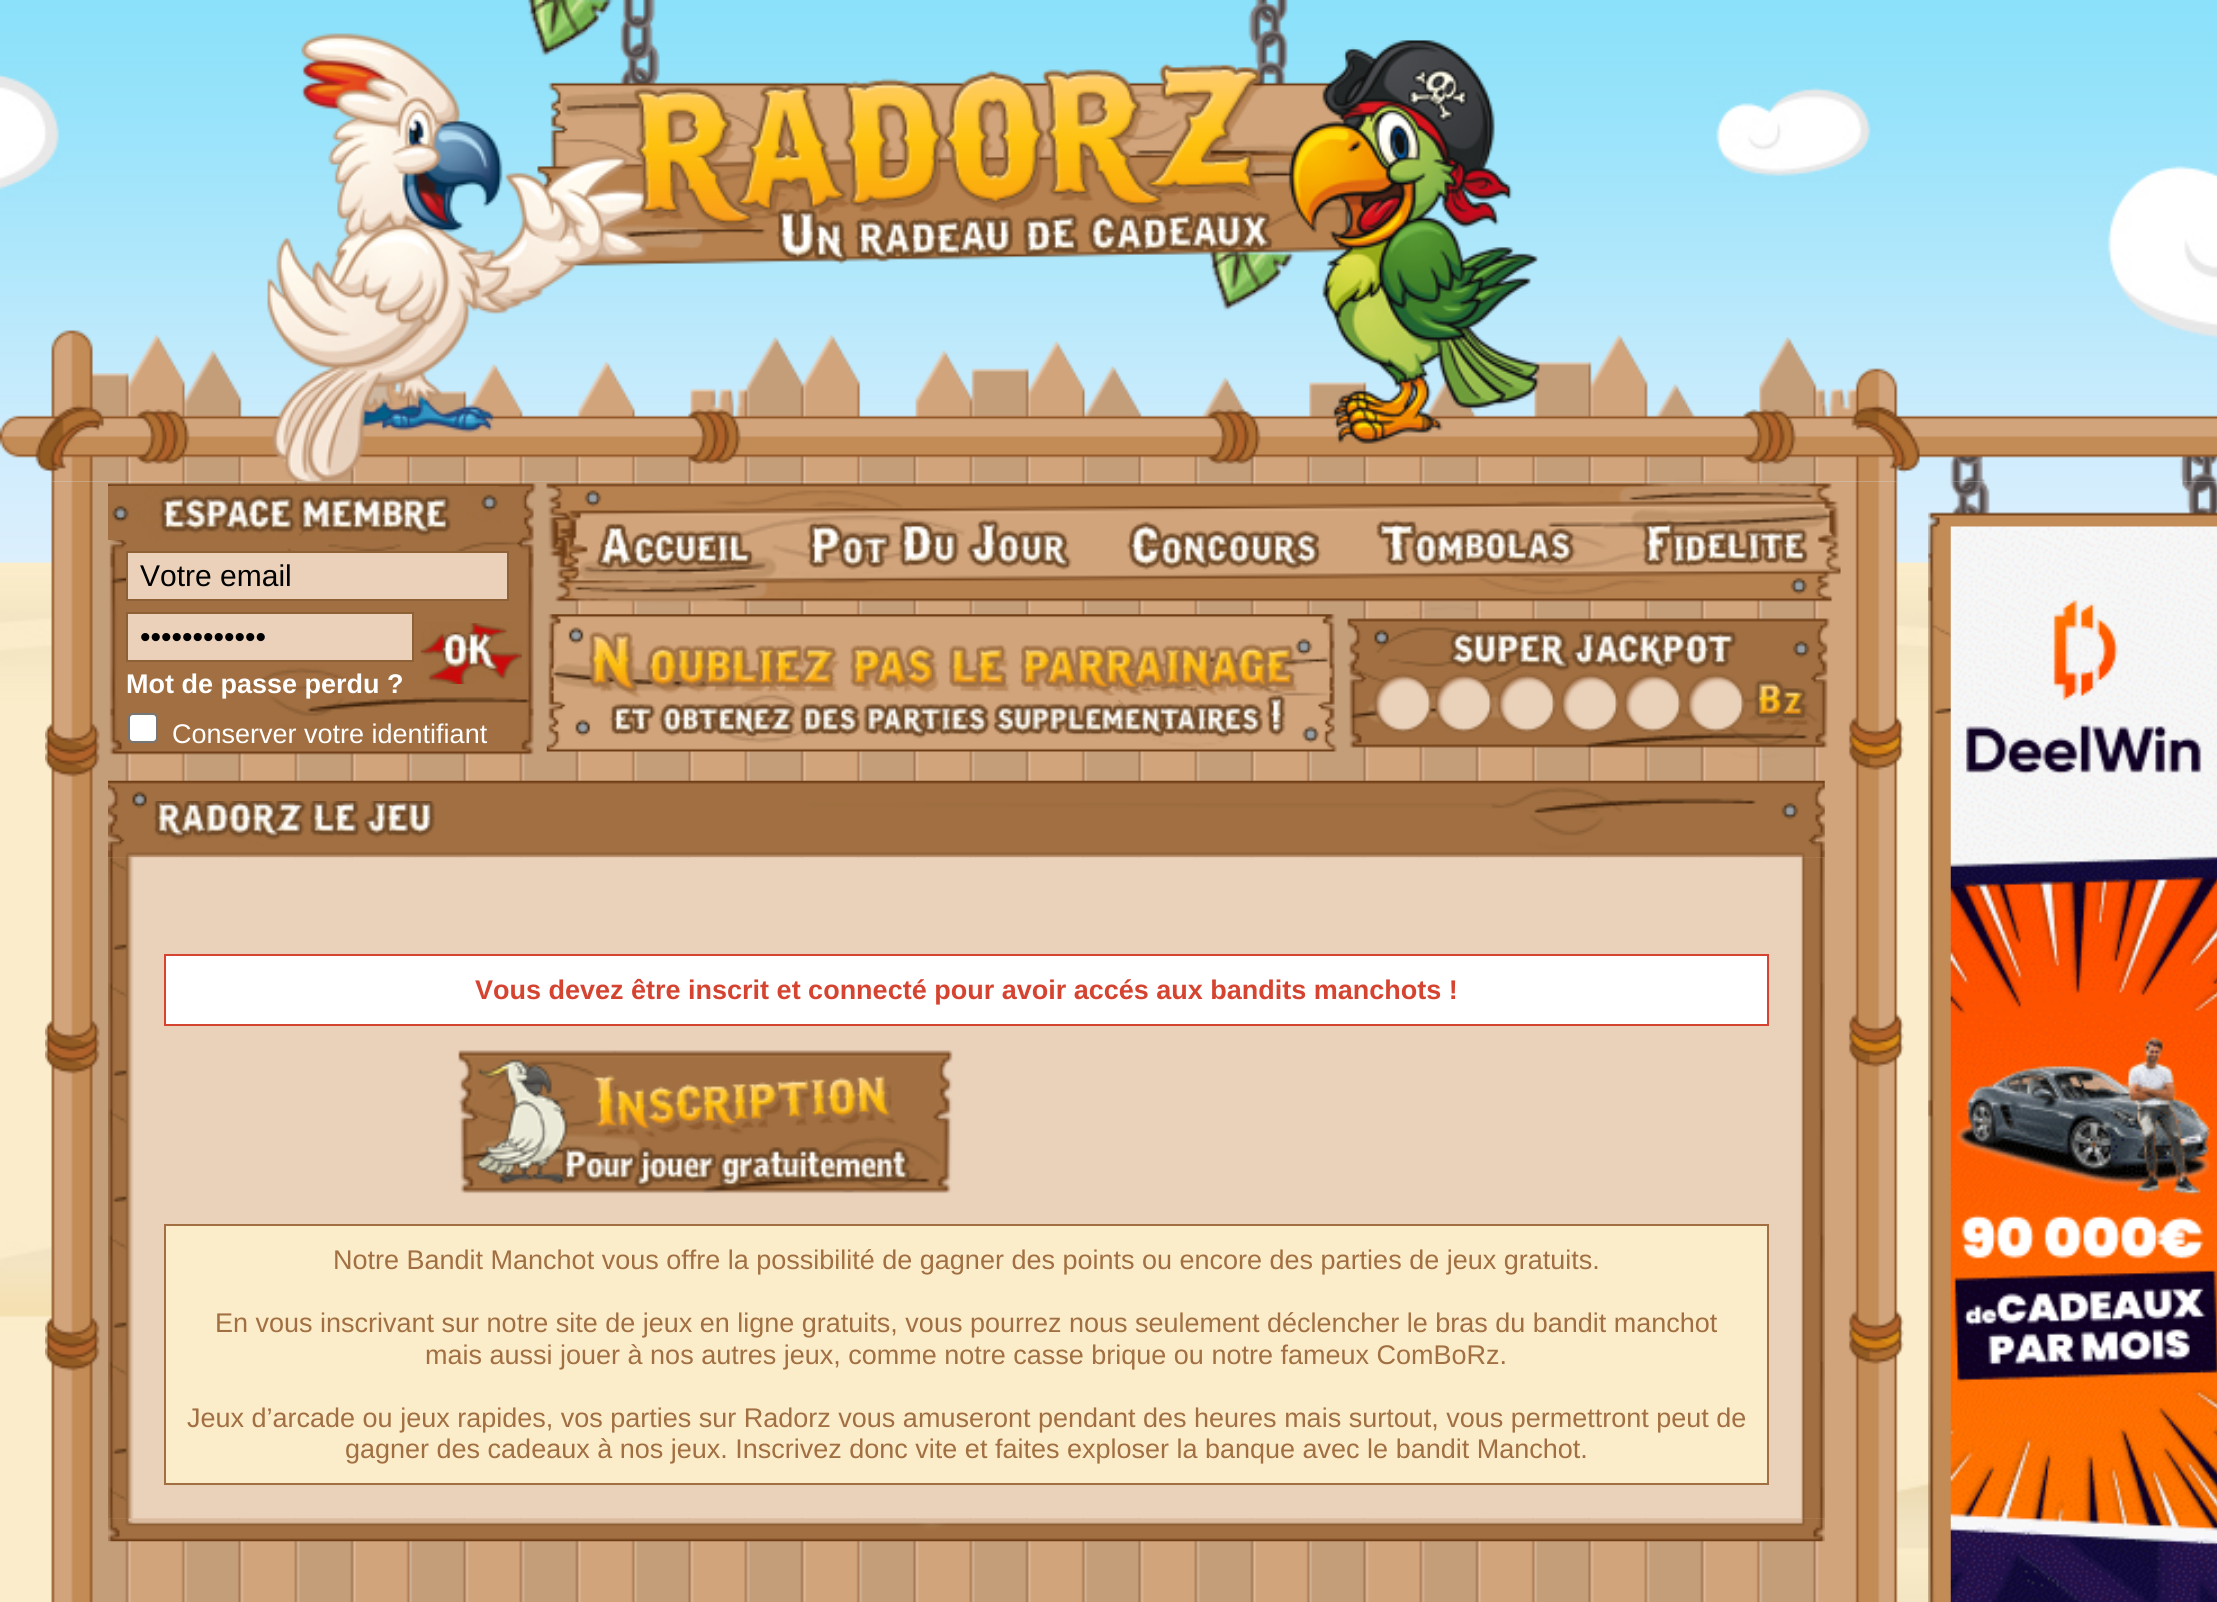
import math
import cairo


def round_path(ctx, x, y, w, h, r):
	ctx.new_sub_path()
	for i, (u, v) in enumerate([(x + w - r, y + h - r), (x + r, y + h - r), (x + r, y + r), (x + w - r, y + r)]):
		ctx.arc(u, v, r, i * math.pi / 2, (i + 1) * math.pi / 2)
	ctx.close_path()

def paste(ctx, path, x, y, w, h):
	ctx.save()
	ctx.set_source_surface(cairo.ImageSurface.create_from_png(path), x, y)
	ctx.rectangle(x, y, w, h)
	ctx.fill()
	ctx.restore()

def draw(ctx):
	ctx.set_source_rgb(1, 1, 1)
	ctx.paint()
	paste(ctx, 'media/1.png', 0, 0, 2217, 1602)
	paste(ctx, 'media/2.png', 0, 0, 2217, 482)
	paste(ctx, 'media/3.png', 45, 481, 1859, 1121)
	paste(ctx, 'media/4.png', 108, 481, 1733, 277)
	paste(ctx, 'media/5.png', 108, 486, 392, 54)
	ctx.set_source_rgb(0.918, 0.82, 0.729)
	ctx.rectangle(127, 552, 381, 48)
	ctx.fill_preserve()
	ctx.set_source_rgb(0.557, 0.376, 0.212)
	ctx.stroke()
	ctx.select_font_face('Liberation Sans')
	ctx.set_font_size(30)
	ctx.set_source_rgb(0, 0, 0)
	ctx.move_to(140, 586)
	ctx.show_text('Votre email')
	ctx.set_source_rgb(0.918, 0.82, 0.729)
	ctx.rectangle(127, 613, 286, 48)
	ctx.fill_preserve()
	ctx.set_source_rgb(0.557, 0.376, 0.212)
	ctx.stroke()
	ctx.set_source_rgb(0, 0, 0)
	ctx.move_to(140, 647)
	ctx.show_text('••••••••••••')
	ctx.select_font_face('Liberation Sans', cairo.FONT_SLANT_NORMAL, cairo.FONT_WEIGHT_BOLD)
	ctx.set_font_size(27)
	ctx.set_source_rgb(1, 1, 1)
	ctx.move_to(126, 693)
	ctx.show_text('Mot de passe perdu ?')
	paste(ctx, 'media/6.png', 420, 623, 102, 61)
	round_path(ctx, 129, 714, 28, 28, 4)
	ctx.fill_preserve()
	ctx.set_source_rgb(0.463, 0.463, 0.463)
	ctx.stroke()
	ctx.select_font_face('Liberation Sans')
	ctx.set_source_rgb(1, 1, 1)
	ctx.move_to(172, 743)
	ctx.show_text('Conserver votre identifiant')
	paste(ctx, 'media/7.png', 595, 523, 160, 47)
	paste(ctx, 'media/8.png', 807, 519, 265, 51)
	paste(ctx, 'media/9.png', 1126, 521, 196, 49)
	paste(ctx, 'media/10.png', 1376, 519, 200, 49)
	paste(ctx, 'media/11.png', 1642, 519, 167, 49)
	paste(ctx, 'media/12.png', 546, 614, 791, 138)
	paste(ctx, 'media/13.png', 108, 780, 1717, 78)
	paste(ctx, 'media/14.png', 153, 801, 282, 39)
	paste(ctx, 'media/15.png', 108, 857, 1717, 662)
	ctx.rectangle(165, 955, 1603, 70)
	ctx.fill_preserve()
	ctx.set_source_rgb(0.835, 0.267, 0.192)
	ctx.stroke()
	ctx.select_font_face('Liberation Sans', cairo.FONT_SLANT_NORMAL, cairo.FONT_WEIGHT_BOLD)
	ctx.move_to(475, 999)
	ctx.show_text('Vous devez être inscrit et connecté pour avoir accés aux bandits manchots !')
	paste(ctx, 'media/16.png', 458, 1050, 495, 144)
	ctx.set_source_rgb(0.984, 0.925, 0.792)
	ctx.rectangle(165, 1225, 1603, 259)
	ctx.fill_preserve()
	ctx.set_source_rgb(0.631, 0.435, 0.255)
	ctx.stroke()
	ctx.select_font_face('Liberation Sans')
	for x, y, s in [
		(333, 1269, 'Notre Bandit Manchot vous offre la possibilité de gagner des points ou encore des parties de jeux gratuits.'),
		(215, 1332, 'En vous inscrivant sur notre site de jeux en ligne gratuits, vous pourrez nous seulement déclencher le bras du bandit manchot'),
		(425, 1364, 'mais aussi jouer à nos autres jeux, comme notre casse brique ou notre fameux ComBoRz.'),
		(187, 1427, 'Jeux d’arcade ou jeux rapides, vos parties sur Radorz vous amuseront pendant des heures mais surtout, vous permettront peut de'),
		(345, 1458, 'gagner des cadeaux à nos jeux. Inscrivez donc vite et faites exploser la banque avec le bandit Manchot.'),
	]:
		ctx.move_to(x, y)
		ctx.show_text(s)
	paste(ctx, 'media/17.png', 108, 1518, 1717, 24)
	paste(ctx, 'media/18.png', 1928, 481, 289, 1121)
	paste(ctx, 'media/19.png', 1950, 526, 267, 1076)


surface = cairo.ImageSurface(cairo.FORMAT_RGB24, 2217, 1602)
ctx = cairo.Context(surface)
options = cairo.FontOptions()
options.set_hint_metrics(cairo.HINT_METRICS_OFF)
options.set_hint_style(cairo.HINT_STYLE_NONE)
ctx.set_font_options(options)
ctx.set_miter_limit(4)
draw(ctx)
surface.write_to_png('image.png')
